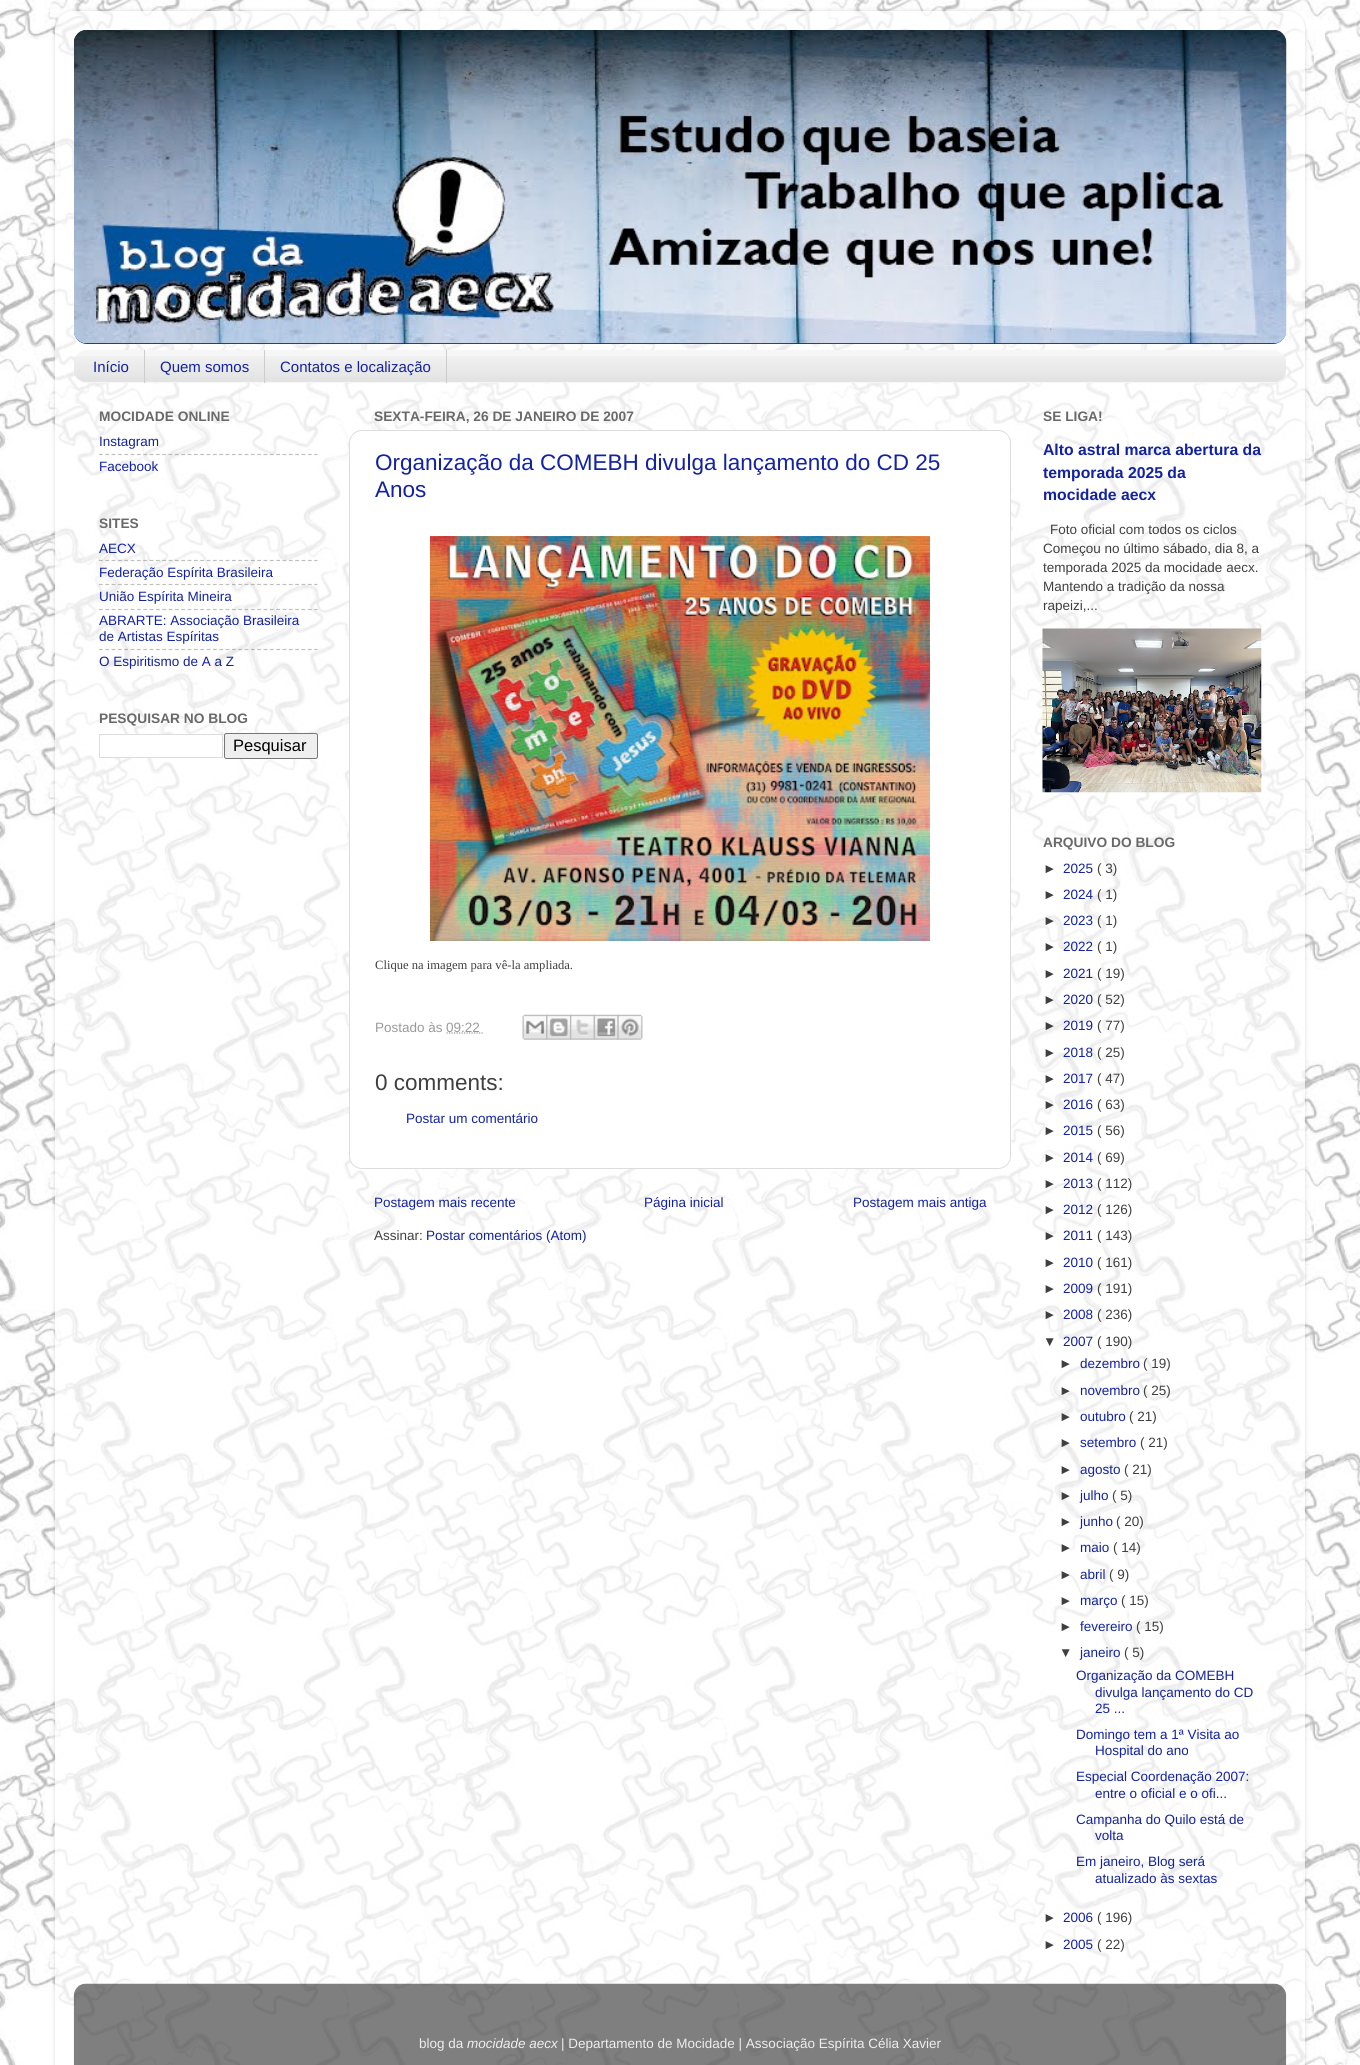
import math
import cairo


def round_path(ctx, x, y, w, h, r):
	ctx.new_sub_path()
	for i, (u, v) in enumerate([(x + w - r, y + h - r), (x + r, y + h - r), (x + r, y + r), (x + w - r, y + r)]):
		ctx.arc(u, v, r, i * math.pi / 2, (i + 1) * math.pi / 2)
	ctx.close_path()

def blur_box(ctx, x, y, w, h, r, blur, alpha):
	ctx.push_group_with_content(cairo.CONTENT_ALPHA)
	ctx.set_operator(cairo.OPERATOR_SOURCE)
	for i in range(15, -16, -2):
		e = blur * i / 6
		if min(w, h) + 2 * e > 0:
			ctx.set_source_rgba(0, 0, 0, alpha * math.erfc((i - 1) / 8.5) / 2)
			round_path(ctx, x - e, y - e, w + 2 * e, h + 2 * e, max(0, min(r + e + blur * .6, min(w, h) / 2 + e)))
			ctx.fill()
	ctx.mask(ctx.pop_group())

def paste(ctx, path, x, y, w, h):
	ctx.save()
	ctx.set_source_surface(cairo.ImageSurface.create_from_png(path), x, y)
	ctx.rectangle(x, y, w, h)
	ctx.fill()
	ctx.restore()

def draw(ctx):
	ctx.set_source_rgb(1, 1, 1)
	ctx.paint()
	paste(ctx, 'media/1.png', 0, 0, 1360, 2065)
	ctx.save()
	ctx.set_fill_rule(cairo.FILL_RULE_EVEN_ODD)
	ctx.new_path()
	ctx.move_to(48, 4)
	ctx.line_to(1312, 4)
	ctx.line_to(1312, 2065)
	ctx.line_to(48, 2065)
	ctx.close_path()
	ctx.move_to(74, 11)
	ctx.line_to(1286, 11)
	ctx.curve_to(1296.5, 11, 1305, 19.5, 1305, 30)
	ctx.line_to(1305, 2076)
	ctx.curve_to(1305, 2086.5, 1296.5, 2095, 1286, 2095)
	ctx.line_to(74, 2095)
	ctx.curve_to(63.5, 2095, 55, 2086.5, 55, 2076)
	ctx.line_to(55, 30)
	ctx.curve_to(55, 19.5, 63.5, 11, 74, 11)
	ctx.close_path()
	ctx.clip()
	ctx.set_source_rgb(0, 0, 0)
	blur_box(ctx, 55, 11, 1250, 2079, 19, 2, 0.15)
	ctx.restore()
	paste(ctx, 'media/2.png', 55, 11, 1250, 2054)
	ctx.set_source_rgb(0.071, 0.133, 0.635)
	round_path(ctx, 74, 30, 1212, 314, 13)
	ctx.fill()
	paste(ctx, 'media/3.png', 74, 30, 1212, 10)
	paste(ctx, 'media/4.png', 74, 30, 1213, 314)
	ctx.set_source_rgb(0.961, 0.961, 0.961)
	round_path(ctx, 74, 350, 1212, 33, 13)
	ctx.fill()
	paste(ctx, 'media/5.png', 74, 356, 1212, 26)
	ctx.set_source_rgb(0.804, 0.804, 0.804)
	ctx.rectangle(144, 350, 1, 33)
	ctx.fill()
	ctx.select_font_face('Liberation Sans')
	ctx.set_font_size(15)
	ctx.set_source_rgb(0.071, 0.133, 0.635)
	ctx.move_to(93, 372)
	ctx.show_text('Início')
	ctx.set_source_rgb(0.804, 0.804, 0.804)
	ctx.rectangle(264, 350, 1, 33)
	ctx.fill()
	ctx.set_source_rgb(0.071, 0.133, 0.635)
	ctx.move_to(160, 372)
	ctx.show_text('Quem somos')
	ctx.set_source_rgb(0.804, 0.804, 0.804)
	ctx.rectangle(446, 350, 1, 33)
	ctx.fill()
	ctx.set_source_rgb(0.071, 0.133, 0.635)
	ctx.move_to(280, 372)
	ctx.show_text('Contatos e localização')
	ctx.select_font_face('Liberation Sans', cairo.FONT_SLANT_NORMAL, cairo.FONT_WEIGHT_BOLD)
	ctx.set_font_size(13.75)
	ctx.set_source_rgb(0.412, 0.412, 0.412)
	ctx.move_to(99, 421)
	ctx.show_text('MOCIDADE ONLINE')
	ctx.select_font_face('Liberation Sans')
	ctx.set_font_size(13.5)
	ctx.set_source_rgb(0.071, 0.133, 0.635)
	ctx.move_to(99, 446)
	ctx.show_text('Instagram')
	ctx.new_path()
	ctx.move_to(99, 454.5)
	ctx.line_to(317.5, 454.5)
	ctx.set_source_rgba(0.502, 0.502, 0.502, 0.5)
	ctx.set_line_width(1.2)
	ctx.set_dash([3.75, 2.58])
	ctx.stroke()
	ctx.set_source_rgb(0.071, 0.133, 0.635)
	ctx.move_to(99, 471)
	ctx.show_text('Facebook')
	ctx.select_font_face('Liberation Sans', cairo.FONT_SLANT_NORMAL, cairo.FONT_WEIGHT_BOLD)
	ctx.set_font_size(13.75)
	ctx.set_source_rgb(0.412, 0.412, 0.412)
	ctx.move_to(99, 528)
	ctx.show_text('SITES')
	ctx.select_font_face('Liberation Sans')
	ctx.set_font_size(13.5)
	ctx.set_source_rgb(0.071, 0.133, 0.635)
	ctx.move_to(99, 553)
	ctx.show_text('AECX')
	ctx.new_path()
	ctx.move_to(99, 560.5)
	ctx.line_to(317.5, 560.5)
	ctx.set_source_rgba(0.502, 0.502, 0.502, 0.5)
	ctx.stroke()
	ctx.set_source_rgb(0.071, 0.133, 0.635)
	ctx.move_to(99, 577)
	ctx.show_text('Federação Espírita Brasileira')
	ctx.new_path()
	ctx.move_to(99, 584.5)
	ctx.line_to(317.5, 584.5)
	ctx.set_source_rgba(0.502, 0.502, 0.502, 0.5)
	ctx.stroke()
	ctx.set_source_rgb(0.071, 0.133, 0.635)
	ctx.move_to(99, 601)
	ctx.show_text('União Espírita Mineira')
	ctx.new_path()
	ctx.move_to(99, 609.5)
	ctx.line_to(317.5, 609.5)
	ctx.set_source_rgba(0.502, 0.502, 0.502, 0.5)
	ctx.stroke()
	ctx.set_source_rgb(0.071, 0.133, 0.635)
	ctx.move_to(99, 625)
	ctx.show_text('ABRARTE: Associação Brasileira')
	ctx.move_to(99, 641)
	ctx.show_text('de Artistas Espíritas')
	ctx.new_path()
	ctx.move_to(99, 649.5)
	ctx.line_to(317.5, 649.5)
	ctx.set_source_rgba(0.502, 0.502, 0.502, 0.5)
	ctx.stroke()
	ctx.set_source_rgb(0.071, 0.133, 0.635)
	ctx.move_to(99, 666)
	ctx.show_text('O Espiritismo de A a Z')
	ctx.select_font_face('Liberation Sans', cairo.FONT_SLANT_NORMAL, cairo.FONT_WEIGHT_BOLD)
	ctx.set_font_size(13.75)
	ctx.set_source_rgb(0.412, 0.412, 0.412)
	ctx.move_to(99, 723)
	ctx.show_text('PESQUISAR NO BLOG')
	ctx.set_source_rgb(1, 1, 1)
	ctx.rectangle(107, 735, 115, 22)
	ctx.fill()
	ctx.rectangle(99.5, 734.5, 123, 23)
	ctx.set_source_rgb(0.867, 0.867, 0.867)
	ctx.set_line_width(1)
	ctx.set_dash([])
	ctx.stroke()
	ctx.set_source_rgb(0.937, 0.937, 0.937)
	round_path(ctx, 224.5, 733.5, 93, 25, 2)
	ctx.fill_preserve()
	ctx.set_source_rgb(0.463, 0.463, 0.463)
	ctx.stroke()
	ctx.select_font_face('Liberation Sans')
	ctx.set_font_size(16.5)
	ctx.set_source_rgb(0, 0, 0)
	ctx.move_to(233, 751)
	ctx.show_text('Pesquisar')
	ctx.select_font_face('Liberation Sans', cairo.FONT_SLANT_NORMAL, cairo.FONT_WEIGHT_BOLD)
	ctx.set_font_size(13.75)
	ctx.set_source_rgb(0.412, 0.412, 0.412)
	ctx.move_to(374, 421)
	ctx.show_text('SEXTA-FEIRA, 26 DE JANEIRO DE 2007')
	ctx.set_source_rgb(1, 1, 1)
	round_path(ctx, 349.5, 430.5, 661, 738, 12.5)
	ctx.fill_preserve()
	ctx.set_source_rgb(0.867, 0.867, 0.867)
	ctx.stroke()
	ctx.select_font_face('Liberation Sans')
	ctx.set_font_size(22.5)
	ctx.set_source_rgb(0.071, 0.133, 0.635)
	ctx.move_to(375, 470)
	ctx.show_text('Organização da COMEBH divulga lançamento do CD 25')
	ctx.move_to(375, 497)
	ctx.show_text('Anos')
	paste(ctx, 'media/6.png', 430, 536, 500, 405)
	ctx.select_font_face('Liberation Serif')
	ctx.set_font_size(12.6)
	ctx.set_source_rgb(0.247, 0.247, 0.247)
	ctx.move_to(375, 969)
	ctx.show_text('Clique na imagem para vê-la ampliada.')
	ctx.select_font_face('Liberation Sans')
	ctx.set_font_size(13.5)
	ctx.set_source_rgb(0.604, 0.604, 0.604)
	ctx.move_to(375, 1032)
	ctx.show_text('Postado às')
	ctx.new_path()
	ctx.move_to(446.5, 1033)
	ctx.line_to(484, 1033)
	ctx.set_line_width(1.2)
	ctx.set_dash([1.25, 1.25])
	ctx.stroke()
	ctx.move_to(446, 1032)
	ctx.show_text('09:22')
	paste(ctx, 'media/7.png', 522, 1014, 26, 26)
	paste(ctx, 'media/8.png', 546, 1014, 26, 26)
	paste(ctx, 'media/9.png', 570, 1014, 25, 26)
	paste(ctx, 'media/10.png', 593, 1014, 26, 26)
	paste(ctx, 'media/11.png', 617, 1014, 26, 26)
	ctx.set_font_size(22.5)
	ctx.set_source_rgb(0.247, 0.247, 0.247)
	ctx.move_to(375, 1090)
	ctx.show_text('0 comments:')
	ctx.set_font_size(13.5)
	ctx.set_source_rgb(0.071, 0.133, 0.635)
	for x, y, s in [
		(406, 1123, 'Postar um comentário'),
		(374, 1207, 'Postagem mais recente'),
		(644, 1207, 'Página inicial'),
		(853, 1207, 'Postagem mais antiga'),
	]:
		ctx.move_to(x, y)
		ctx.show_text(s)
	ctx.set_source_rgb(0.247, 0.247, 0.247)
	ctx.move_to(374, 1240)
	ctx.show_text('Assinar:')
	ctx.set_source_rgb(0.071, 0.133, 0.635)
	ctx.move_to(426, 1240)
	ctx.show_text('Postar comentários (Atom)')
	ctx.select_font_face('Liberation Sans', cairo.FONT_SLANT_NORMAL, cairo.FONT_WEIGHT_BOLD)
	ctx.set_font_size(13.75)
	ctx.set_source_rgb(0.412, 0.412, 0.412)
	ctx.move_to(1043, 421)
	ctx.show_text('SE LIGA!')
	ctx.set_font_size(15.75)
	ctx.set_source_rgb(0.071, 0.133, 0.635)
	for x, y, s in [
		(1043, 455, 'Alto astral marca abertura da'),
		(1043, 478, 'temporada 2025 da'),
		(1043, 500, 'mocidade aecx'),
	]:
		ctx.move_to(x, y)
		ctx.show_text(s)
	ctx.select_font_face('Liberation Sans')
	ctx.set_font_size(13.5)
	ctx.set_source_rgb(0.247, 0.247, 0.247)
	for x, y, s in [
		(1050, 534, 'Foto oficial com todos os ciclos'),
		(1043, 553, 'Começou no último sábado, dia 8, a'),
		(1043, 572, 'temporada 2025 da mocidade aecx.'),
		(1043, 591, 'Mantendo a tradição da nossa'),
		(1043, 610, 'rapeizi,...'),
	]:
		ctx.move_to(x, y)
		ctx.show_text(s)
	paste(ctx, 'media/12.png', 1042, 628, 220, 165)
	ctx.select_font_face('Liberation Sans', cairo.FONT_SLANT_NORMAL, cairo.FONT_WEIGHT_BOLD)
	ctx.set_font_size(13.75)
	ctx.set_source_rgb(0.412, 0.412, 0.412)
	ctx.move_to(1043, 847)
	ctx.show_text('ARQUIVO DO BLOG')
	ctx.select_font_face('Liberation Sans')
	ctx.set_font_size(13.5)
	ctx.set_source_rgb(0.247, 0.247, 0.247)
	ctx.move_to(1043, 873)
	ctx.show_text('►')
	ctx.set_source_rgb(0.071, 0.133, 0.635)
	ctx.move_to(1063, 873)
	ctx.show_text('2025')
	ctx.set_source_rgb(0.247, 0.247, 0.247)
	ctx.move_to(1097, 873)
	ctx.show_text('( 3)')
	ctx.move_to(1043, 899)
	ctx.show_text('►')
	ctx.set_source_rgb(0.071, 0.133, 0.635)
	ctx.move_to(1063, 899)
	ctx.show_text('2024')
	ctx.set_source_rgb(0.247, 0.247, 0.247)
	ctx.move_to(1097, 899)
	ctx.show_text('( 1)')
	ctx.move_to(1043, 925)
	ctx.show_text('►')
	ctx.set_source_rgb(0.071, 0.133, 0.635)
	ctx.move_to(1063, 925)
	ctx.show_text('2023')
	ctx.set_source_rgb(0.247, 0.247, 0.247)
	ctx.move_to(1097, 925)
	ctx.show_text('( 1)')
	ctx.move_to(1043, 951)
	ctx.show_text('►')
	ctx.set_source_rgb(0.071, 0.133, 0.635)
	ctx.move_to(1063, 951)
	ctx.show_text('2022')
	ctx.set_source_rgb(0.247, 0.247, 0.247)
	ctx.move_to(1097, 951)
	ctx.show_text('( 1)')
	ctx.move_to(1043, 978)
	ctx.show_text('►')
	ctx.set_source_rgb(0.071, 0.133, 0.635)
	ctx.move_to(1063, 978)
	ctx.show_text('2021')
	ctx.set_source_rgb(0.247, 0.247, 0.247)
	ctx.move_to(1097, 978)
	ctx.show_text('( 19)')
	ctx.move_to(1043, 1004)
	ctx.show_text('►')
	ctx.set_source_rgb(0.071, 0.133, 0.635)
	ctx.move_to(1063, 1004)
	ctx.show_text('2020')
	ctx.set_source_rgb(0.247, 0.247, 0.247)
	ctx.move_to(1097, 1004)
	ctx.show_text('( 52)')
	ctx.move_to(1043, 1030)
	ctx.show_text('►')
	ctx.set_source_rgb(0.071, 0.133, 0.635)
	ctx.move_to(1063, 1030)
	ctx.show_text('2019')
	ctx.set_source_rgb(0.247, 0.247, 0.247)
	ctx.move_to(1097, 1030)
	ctx.show_text('( 77)')
	ctx.move_to(1043, 1057)
	ctx.show_text('►')
	ctx.set_source_rgb(0.071, 0.133, 0.635)
	ctx.move_to(1063, 1057)
	ctx.show_text('2018')
	ctx.set_source_rgb(0.247, 0.247, 0.247)
	ctx.move_to(1097, 1057)
	ctx.show_text('( 25)')
	ctx.move_to(1043, 1083)
	ctx.show_text('►')
	ctx.set_source_rgb(0.071, 0.133, 0.635)
	ctx.move_to(1063, 1083)
	ctx.show_text('2017')
	ctx.set_source_rgb(0.247, 0.247, 0.247)
	ctx.move_to(1097, 1083)
	ctx.show_text('( 47)')
	ctx.move_to(1043, 1109)
	ctx.show_text('►')
	ctx.set_source_rgb(0.071, 0.133, 0.635)
	ctx.move_to(1063, 1109)
	ctx.show_text('2016')
	ctx.set_source_rgb(0.247, 0.247, 0.247)
	ctx.move_to(1097, 1109)
	ctx.show_text('( 63)')
	ctx.move_to(1043, 1135)
	ctx.show_text('►')
	ctx.set_source_rgb(0.071, 0.133, 0.635)
	ctx.move_to(1063, 1135)
	ctx.show_text('2015')
	ctx.set_source_rgb(0.247, 0.247, 0.247)
	ctx.move_to(1097, 1135)
	ctx.show_text('( 56)')
	ctx.move_to(1043, 1162)
	ctx.show_text('►')
	ctx.set_source_rgb(0.071, 0.133, 0.635)
	ctx.move_to(1063, 1162)
	ctx.show_text('2014')
	ctx.set_source_rgb(0.247, 0.247, 0.247)
	ctx.move_to(1097, 1162)
	ctx.show_text('( 69)')
	ctx.move_to(1043, 1188)
	ctx.show_text('►')
	ctx.set_source_rgb(0.071, 0.133, 0.635)
	ctx.move_to(1063, 1188)
	ctx.show_text('2013')
	ctx.set_source_rgb(0.247, 0.247, 0.247)
	ctx.move_to(1097, 1188)
	ctx.show_text('( 112)')
	ctx.move_to(1043, 1214)
	ctx.show_text('►')
	ctx.set_source_rgb(0.071, 0.133, 0.635)
	ctx.move_to(1063, 1214)
	ctx.show_text('2012')
	ctx.set_source_rgb(0.247, 0.247, 0.247)
	ctx.move_to(1097, 1214)
	ctx.show_text('( 126)')
	ctx.move_to(1043, 1240)
	ctx.show_text('►')
	ctx.set_source_rgb(0.071, 0.133, 0.635)
	ctx.move_to(1063, 1240)
	ctx.show_text('2011')
	ctx.set_source_rgb(0.247, 0.247, 0.247)
	ctx.move_to(1097, 1240)
	ctx.show_text('( 143)')
	ctx.move_to(1043, 1267)
	ctx.show_text('►')
	ctx.set_source_rgb(0.071, 0.133, 0.635)
	ctx.move_to(1063, 1267)
	ctx.show_text('2010')
	ctx.set_source_rgb(0.247, 0.247, 0.247)
	ctx.move_to(1097, 1267)
	ctx.show_text('( 161)')
	ctx.move_to(1043, 1293)
	ctx.show_text('►')
	ctx.set_source_rgb(0.071, 0.133, 0.635)
	ctx.move_to(1063, 1293)
	ctx.show_text('2009')
	ctx.set_source_rgb(0.247, 0.247, 0.247)
	ctx.move_to(1097, 1293)
	ctx.show_text('( 191)')
	ctx.move_to(1043, 1319)
	ctx.show_text('►')
	ctx.set_source_rgb(0.071, 0.133, 0.635)
	ctx.move_to(1063, 1319)
	ctx.show_text('2008')
	ctx.set_source_rgb(0.247, 0.247, 0.247)
	ctx.move_to(1097, 1319)
	ctx.show_text('( 236)')
	ctx.move_to(1043, 1346)
	ctx.show_text('▼')
	ctx.set_source_rgb(0.071, 0.133, 0.635)
	ctx.move_to(1063, 1346)
	ctx.show_text('2007')
	ctx.set_source_rgb(0.247, 0.247, 0.247)
	ctx.move_to(1097, 1346)
	ctx.show_text('( 190)')
	ctx.move_to(1059, 1368)
	ctx.show_text('►')
	ctx.set_source_rgb(0.071, 0.133, 0.635)
	ctx.move_to(1080, 1368)
	ctx.show_text('dezembro')
	ctx.set_source_rgb(0.247, 0.247, 0.247)
	ctx.move_to(1143, 1368)
	ctx.show_text('( 19)')
	ctx.move_to(1059, 1395)
	ctx.show_text('►')
	ctx.set_source_rgb(0.071, 0.133, 0.635)
	ctx.move_to(1080, 1395)
	ctx.show_text('novembro')
	ctx.set_source_rgb(0.247, 0.247, 0.247)
	ctx.move_to(1143, 1395)
	ctx.show_text('( 25)')
	ctx.move_to(1059, 1421)
	ctx.show_text('►')
	ctx.set_source_rgb(0.071, 0.133, 0.635)
	ctx.move_to(1080, 1421)
	ctx.show_text('outubro')
	ctx.set_source_rgb(0.247, 0.247, 0.247)
	ctx.move_to(1129, 1421)
	ctx.show_text('( 21)')
	ctx.move_to(1059, 1447)
	ctx.show_text('►')
	ctx.set_source_rgb(0.071, 0.133, 0.635)
	ctx.move_to(1080, 1447)
	ctx.show_text('setembro')
	ctx.set_source_rgb(0.247, 0.247, 0.247)
	ctx.move_to(1140, 1447)
	ctx.show_text('( 21)')
	ctx.move_to(1059, 1474)
	ctx.show_text('►')
	ctx.set_source_rgb(0.071, 0.133, 0.635)
	ctx.move_to(1080, 1474)
	ctx.show_text('agosto')
	ctx.set_source_rgb(0.247, 0.247, 0.247)
	ctx.move_to(1124, 1474)
	ctx.show_text('( 21)')
	ctx.move_to(1059, 1500)
	ctx.show_text('►')
	ctx.set_source_rgb(0.071, 0.133, 0.635)
	ctx.move_to(1080, 1500)
	ctx.show_text('julho')
	ctx.set_source_rgb(0.247, 0.247, 0.247)
	ctx.move_to(1112, 1500)
	ctx.show_text('( 5)')
	ctx.move_to(1059, 1526)
	ctx.show_text('►')
	ctx.set_source_rgb(0.071, 0.133, 0.635)
	ctx.move_to(1080, 1526)
	ctx.show_text('junho')
	ctx.set_source_rgb(0.247, 0.247, 0.247)
	ctx.move_to(1116, 1526)
	ctx.show_text('( 20)')
	ctx.move_to(1059, 1552)
	ctx.show_text('►')
	ctx.set_source_rgb(0.071, 0.133, 0.635)
	ctx.move_to(1080, 1552)
	ctx.show_text('maio')
	ctx.set_source_rgb(0.247, 0.247, 0.247)
	ctx.move_to(1113, 1552)
	ctx.show_text('( 14)')
	ctx.move_to(1059, 1579)
	ctx.show_text('►')
	ctx.set_source_rgb(0.071, 0.133, 0.635)
	ctx.move_to(1080, 1579)
	ctx.show_text('abril')
	ctx.set_source_rgb(0.247, 0.247, 0.247)
	ctx.move_to(1109, 1579)
	ctx.show_text('( 9)')
	ctx.move_to(1059, 1605)
	ctx.show_text('►')
	ctx.set_source_rgb(0.071, 0.133, 0.635)
	ctx.move_to(1080, 1605)
	ctx.show_text('março')
	ctx.set_source_rgb(0.247, 0.247, 0.247)
	ctx.move_to(1121, 1605)
	ctx.show_text('( 15)')
	ctx.move_to(1059, 1631)
	ctx.show_text('►')
	ctx.set_source_rgb(0.071, 0.133, 0.635)
	ctx.move_to(1080, 1631)
	ctx.show_text('fevereiro')
	ctx.set_source_rgb(0.247, 0.247, 0.247)
	ctx.move_to(1136, 1631)
	ctx.show_text('( 15)')
	ctx.move_to(1059, 1657)
	ctx.show_text('▼')
	ctx.set_source_rgb(0.071, 0.133, 0.635)
	ctx.move_to(1080, 1657)
	ctx.show_text('janeiro')
	ctx.set_source_rgb(0.247, 0.247, 0.247)
	ctx.move_to(1124, 1657)
	ctx.show_text('( 5)')
	ctx.set_source_rgb(0.071, 0.133, 0.635)
	for x, y, s in [
		(1076, 1680, 'Organização da COMEBH'),
		(1095, 1697, 'divulga lançamento do CD'),
		(1095, 1713, '25 ...'),
		(1076, 1739, 'Domingo tem a 1ª Visita ao'),
		(1095, 1755, 'Hospital do ano'),
		(1076, 1781, 'Especial Coordenação 2007:'),
		(1095, 1798, 'entre o oficial e o ofi...'),
		(1076, 1824, 'Campanha do Quilo está de'),
		(1095, 1840, 'volta'),
		(1076, 1866, 'Em janeiro, Blog será'),
		(1095, 1883, 'atualizado às sextas'),
	]:
		ctx.move_to(x, y)
		ctx.show_text(s)
	ctx.set_source_rgb(0.247, 0.247, 0.247)
	ctx.move_to(1043, 1922)
	ctx.show_text('►')
	ctx.set_source_rgb(0.071, 0.133, 0.635)
	ctx.move_to(1063, 1922)
	ctx.show_text('2006')
	ctx.set_source_rgb(0.247, 0.247, 0.247)
	ctx.move_to(1097, 1922)
	ctx.show_text('( 196)')
	ctx.move_to(1043, 1949)
	ctx.show_text('►')
	ctx.set_source_rgb(0.071, 0.133, 0.635)
	ctx.move_to(1063, 1949)
	ctx.show_text('2005')
	ctx.set_source_rgb(0.247, 0.247, 0.247)
	ctx.move_to(1097, 1949)
	ctx.show_text('( 22)')
	paste(ctx, 'media/13.png', 73, 1983, 1214, 82)
	ctx.set_source_rgb(0.933, 0.933, 0.933)
	ctx.move_to(419, 2048)
	ctx.show_text('blog da')
	ctx.select_font_face('Liberation Sans', cairo.FONT_SLANT_ITALIC)
	ctx.move_to(467, 2048)
	ctx.show_text('mocidade aecx')
	ctx.select_font_face('Liberation Sans')
	ctx.move_to(561, 2048)
	ctx.show_text('| Departamento de Mocidade | Associação Espírita Célia Xavier')


surface = cairo.ImageSurface(cairo.FORMAT_RGB24, 1360, 2065)
ctx = cairo.Context(surface)
options = cairo.FontOptions()
options.set_hint_metrics(cairo.HINT_METRICS_OFF)
options.set_hint_style(cairo.HINT_STYLE_NONE)
ctx.set_font_options(options)
ctx.set_miter_limit(4)
draw(ctx)
surface.write_to_png('image.png')
